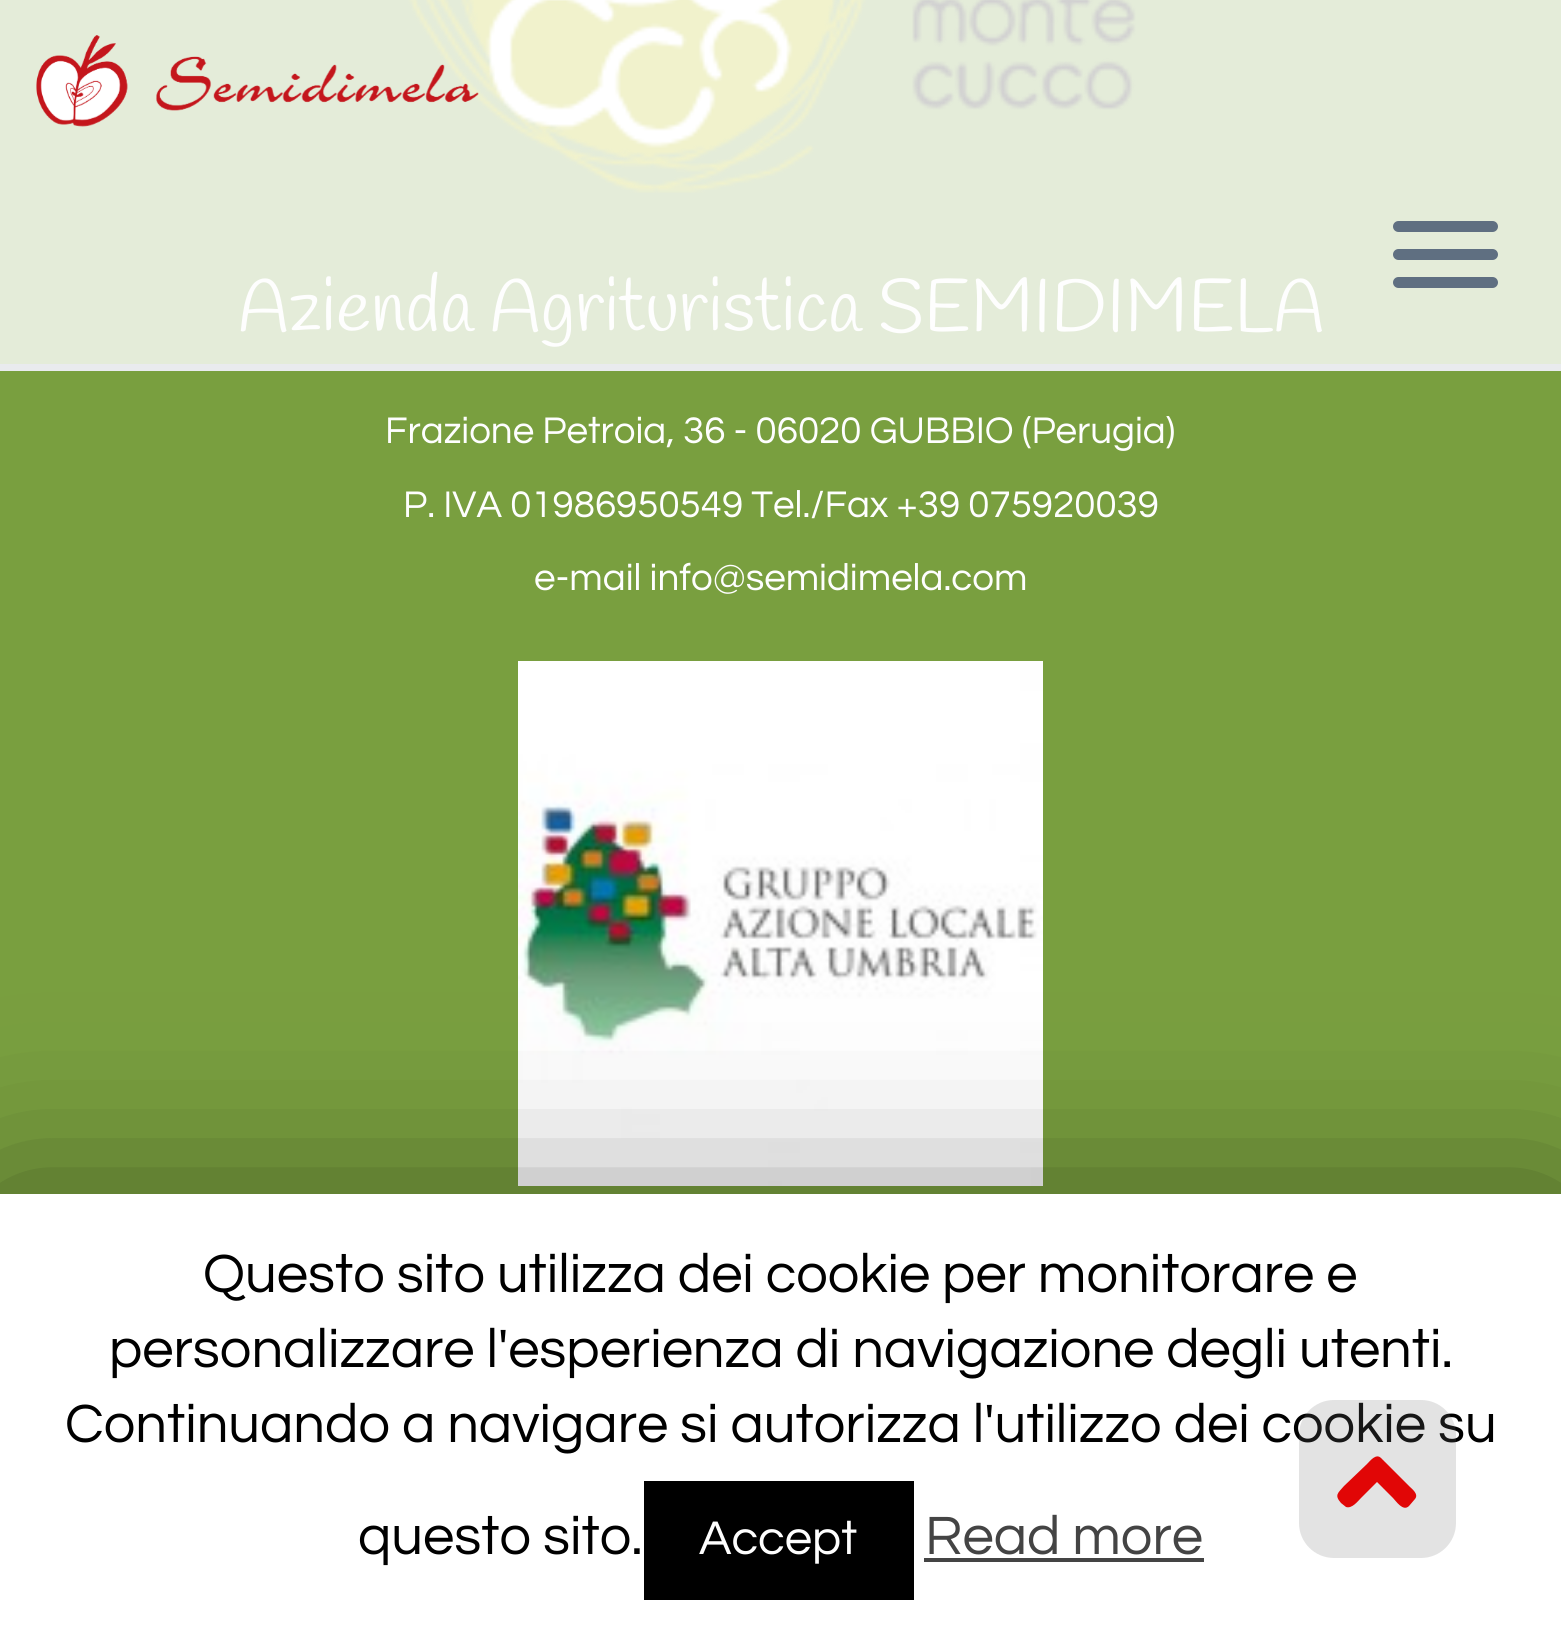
import math
import cairo


def round_path(ctx, x, y, w, h, r):
	ctx.new_sub_path()
	for i, (u, v) in enumerate([(x + w - r, y + h - r), (x + r, y + h - r), (x + r, y + r), (x + w - r, y + r)]):
		ctx.arc(u, v, r, i * math.pi / 2, (i + 1) * math.pi / 2)
	ctx.close_path()

def blur_box(ctx, x, y, w, h, r, blur, alpha):
	ctx.push_group_with_content(cairo.CONTENT_ALPHA)
	ctx.set_operator(cairo.OPERATOR_SOURCE)
	for i in range(15, -16, -2):
		e = blur * i / 6
		if min(w, h) + 2 * e > 0:
			ctx.set_source_rgba(0, 0, 0, alpha * math.erfc((i - 1) / 8.5) / 2)
			round_path(ctx, x - e, y - e, w + 2 * e, h + 2 * e, max(0, min(r + e + blur * .6, min(w, h) / 2 + e)))
			ctx.fill()
	ctx.mask(ctx.pop_group())

def paste(ctx, path, x, y, w, h):
	ctx.save()
	ctx.set_source_surface(cairo.ImageSurface.create_from_png(path), x, y)
	ctx.rectangle(x, y, w, h)
	ctx.fill()
	ctx.restore()

def draw(ctx):
	ctx.set_source_rgb(0.475, 0.624, 0.247)
	ctx.paint()
	ctx.set_source_rgb(0.914, 0.918, 0.933)
	ctx.rectangle(0, 364, 1561, 7)
	ctx.fill()
	ctx.set_source_rgb(0.894, 0.925, 0.851)
	ctx.rectangle(0, 0, 1561, 364)
	ctx.fill()
	paste(ctx, 'media/2.png', 408, 0, 728, 193)
	paste(ctx, 'media/1.png', 36, 35, 443, 92)
	ctx.set_source_rgb(0.373, 0.435, 0.506)
	round_path(ctx, 1393, 221, 105, 11, 5.5)
	ctx.fill()
	round_path(ctx, 1393, 249, 105, 11, 5.5)
	ctx.fill()
	round_path(ctx, 1393, 277, 105, 11, 5.5)
	ctx.fill()
	ctx.select_font_face('Handlee')
	ctx.set_font_size(73.4)
	ctx.set_source_rgb(0.996, 0.996, 0.996)
	ctx.move_to(238, 331)
	ctx.show_text('Azienda Agrituristica SEMIDIMELA')
	ctx.select_font_face('Questrial')
	ctx.set_font_size(38.5)
	for x, y, s in [
		(385, 443, 'Frazione Petroia, 36 - 06020 GUBBIO (Perugia)'),
		(403, 517, 'P. IVA 01986950549 Tel./Fax +39 075920039'),
		(534, 590, 'e-mail info@semidimela.com'),
	]:
		ctx.move_to(x, y)
		ctx.show_text(s)
	paste(ctx, 'media/3.png', 518, 661, 525, 525)
	ctx.set_source_rgb(0, 0, 0)
	blur_box(ctx, 0, 1211, 1561, 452, 0, 87.5, 0.5)
	ctx.set_source_rgb(1, 1, 1)
	ctx.rectangle(0, 1194, 1561, 448)
	ctx.fill()
	ctx.set_font_size(56)
	ctx.set_source_rgb(0, 0, 0)
	for x, y, s in [
		(203, 1292, 'Questo sito utilizza dei cookie per monitorare e'),
		(109, 1367, 'personalizzare l\'esperienza di navigazione degli utenti.'),
		(65, 1442, 'Continuando a navigare si autorizza l\'utilizzo dei cookie su'),
		(358, 1554, 'questo sito.'),
	]:
		ctx.move_to(x, y)
		ctx.show_text(s)
	ctx.rectangle(644, 1481, 270, 119)
	ctx.fill()
	ctx.set_font_size(49)
	ctx.set_source_rgb(0.996, 0.996, 0.996)
	ctx.move_to(699, 1554)
	ctx.show_text('Accept')
	ctx.set_font_size(56)
	ctx.set_source_rgb(0.267, 0.267, 0.267)
	ctx.move_to(925, 1554)
	ctx.show_text('Read more')
	ctx.rectangle(924, 1558, 280, 4)
	ctx.fill()
	ctx.set_source_rgba(0.467, 0.467, 0.467, 0.2)
	round_path(ctx, 1299, 1400, 157, 158, 35)
	ctx.fill()
	ctx.set_source_rgb(0.882, 0.027, 0.027)
	ctx.new_path()
	ctx.move_to(1381, 1458)
	ctx.line_to(1409, 1486)
	ctx.curve_to(1412, 1489, 1419, 1494, 1415, 1499)
	ctx.line_to(1409, 1506)
	ctx.curve_to(1403, 1512, 1396, 1501, 1393, 1498)
	ctx.line_to(1377, 1482)
	ctx.line_to(1361, 1498)
	ctx.curve_to(1358, 1501, 1352, 1509, 1346, 1507)
	ctx.line_to(1341, 1503)
	ctx.curve_to(1334, 1495, 1338, 1493, 1344, 1486)
	ctx.line_to(1367, 1464)
	ctx.curve_to(1370, 1461, 1376, 1453, 1381, 1458)
	ctx.close_path()
	ctx.fill()


surface = cairo.ImageSurface(cairo.FORMAT_RGB24, 1561, 1642)
ctx = cairo.Context(surface)
options = cairo.FontOptions()
options.set_hint_metrics(cairo.HINT_METRICS_OFF)
options.set_hint_style(cairo.HINT_STYLE_NONE)
ctx.set_font_options(options)
ctx.set_miter_limit(4)
draw(ctx)
surface.write_to_png('image.png')
